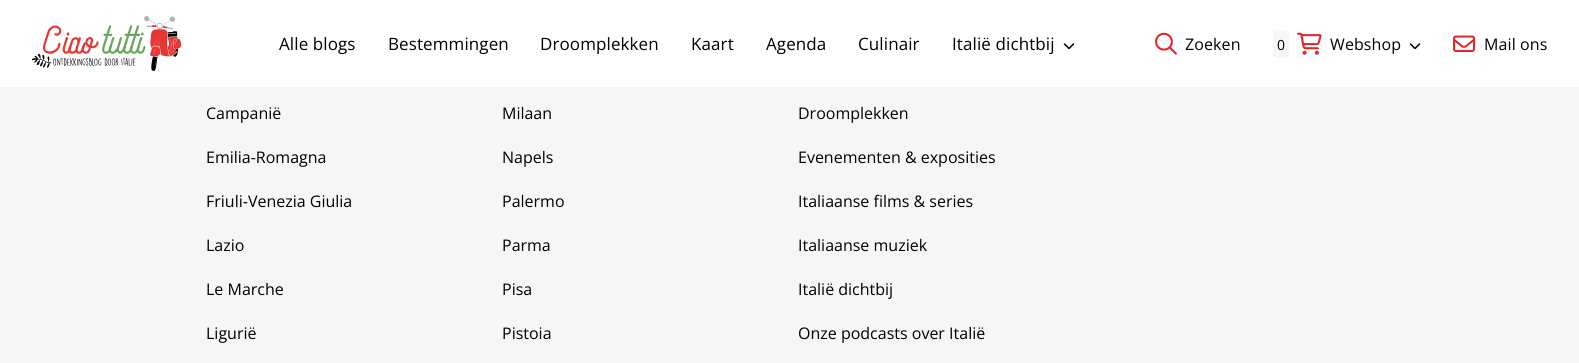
import math
import cairo


def write_spaced(ctx, x, y, s, letter, word):
	ctx.move_to(x, y)
	for ch in s:
		ctx.show_text(ch)
		ctx.rel_move_to(letter + word * (ch == ' '), 0)

def round_path(ctx, x, y, w, h, r):
	ctx.new_sub_path()
	for i, (u, v) in enumerate([(x + w - r, y + h - r), (x + r, y + h - r), (x + r, y + r), (x + w - r, y + r)]):
		ctx.arc(u, v, r, i * math.pi / 2, (i + 1) * math.pi / 2)
	ctx.close_path()

def paste(ctx, path, x, y, w, h):
	ctx.save()
	ctx.set_source_surface(cairo.ImageSurface.create_from_png(path), x, y)
	ctx.rectangle(x, y, w, h)
	ctx.fill()
	ctx.restore()

def draw(ctx):
	ctx.set_source_rgb(0.961, 0.961, 0.961)
	ctx.paint()
	ctx.set_source_rgb(1, 1, 1)
	ctx.rectangle(0, 0, 1579, 87)
	ctx.fill()
	paste(ctx, 'media/1.png', 32, 16, 149, 55)
	ctx.select_font_face('Open Sans')
	ctx.set_font_size(17)
	ctx.set_source_rgb(0, 0, 0)
	for x, y, s in [
		(279, 50, 'Alle blogs'),
		(388, 50, 'Bestemmingen'),
		(540, 50, 'Droomplekken'),
		(691, 50, 'Kaart'),
		(766, 50, 'Agenda'),
		(858, 50, 'Culinair'),
		(952, 50, 'Italië dichtbij'),
	]:
		write_spaced(ctx, x, y, s, 0.1, 0)
	paste(ctx, 'media/2.png', 1063, 43, 12, 7)
	paste(ctx, 'media/3.png', 1155, 32, 22, 23)
	ctx.set_font_size(16)
	write_spaced(ctx, 1185, 50, 'Zoeken', 0.1, 0)
	ctx.set_source_rgb(0.961, 0.961, 0.961)
	round_path(ctx, 1273, 31, 16, 27, 4)
	ctx.fill()
	ctx.set_font_size(14)
	ctx.set_source_rgb(0, 0, 0)
	write_spaced(ctx, 1277, 50, '0', 0.1, 0)
	paste(ctx, 'media/4.png', 1297, 32, 25, 23)
	ctx.set_font_size(16)
	write_spaced(ctx, 1330, 50, 'Webshop', 0.1, 0)
	paste(ctx, 'media/2.png', 1409, 43, 12, 7)
	paste(ctx, 'media/5.png', 1453, 35, 22, 17)
	write_spaced(ctx, 1484, 50, 'Mail ons', 0.1, 0)
	for x, y, s in [
		(206, 119, 'Campanië'),
		(206, 163, 'Emilia-Romagna'),
		(206, 207, 'Friuli-Venezia Giulia'),
		(206, 251, 'Lazio'),
		(206, 295, 'Le Marche'),
		(206, 339, 'Ligurië'),
		(502, 119, 'Milaan'),
		(502, 163, 'Napels'),
		(502, 207, 'Palermo'),
		(502, 251, 'Parma'),
		(502, 295, 'Pisa'),
		(502, 339, 'Pistoia'),
		(798, 119, 'Droomplekken'),
		(798, 163, 'Evenementen & exposities'),
		(798, 207, 'Italiaanse films & series'),
		(798, 251, 'Italiaanse muziek'),
		(798, 295, 'Italië dichtbij'),
		(798, 339, 'Onze podcasts over Italië'),
	]:
		ctx.move_to(x, y)
		ctx.show_text(s)


surface = cairo.ImageSurface(cairo.FORMAT_RGB24, 1579, 363)
ctx = cairo.Context(surface)
options = cairo.FontOptions()
options.set_hint_metrics(cairo.HINT_METRICS_OFF)
options.set_hint_style(cairo.HINT_STYLE_NONE)
ctx.set_font_options(options)
ctx.set_miter_limit(4)
draw(ctx)
surface.write_to_png('image.png')
